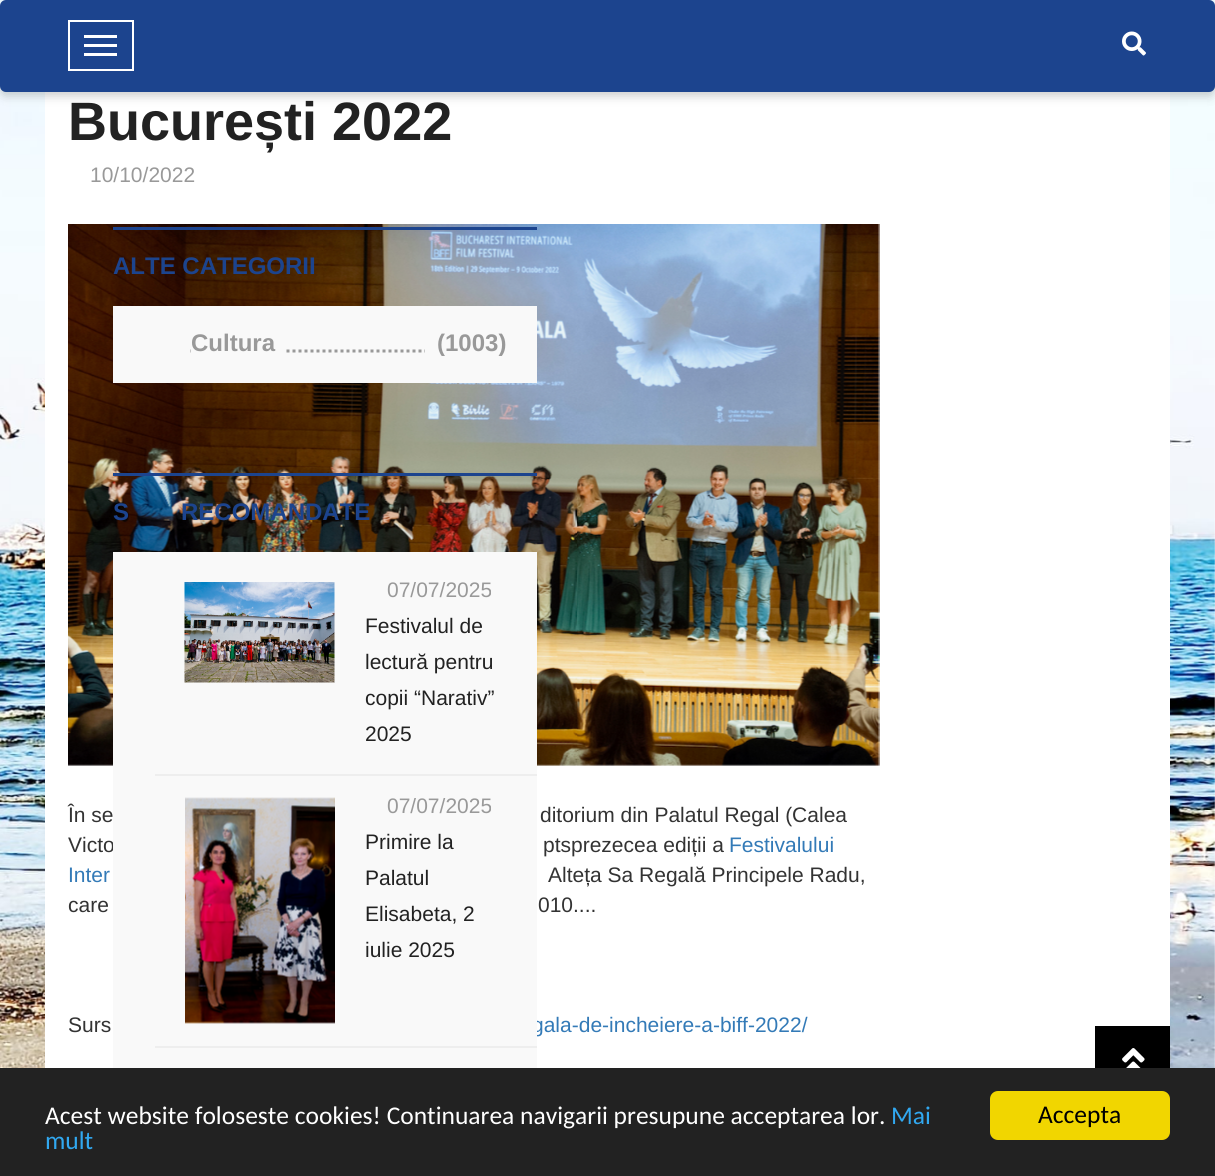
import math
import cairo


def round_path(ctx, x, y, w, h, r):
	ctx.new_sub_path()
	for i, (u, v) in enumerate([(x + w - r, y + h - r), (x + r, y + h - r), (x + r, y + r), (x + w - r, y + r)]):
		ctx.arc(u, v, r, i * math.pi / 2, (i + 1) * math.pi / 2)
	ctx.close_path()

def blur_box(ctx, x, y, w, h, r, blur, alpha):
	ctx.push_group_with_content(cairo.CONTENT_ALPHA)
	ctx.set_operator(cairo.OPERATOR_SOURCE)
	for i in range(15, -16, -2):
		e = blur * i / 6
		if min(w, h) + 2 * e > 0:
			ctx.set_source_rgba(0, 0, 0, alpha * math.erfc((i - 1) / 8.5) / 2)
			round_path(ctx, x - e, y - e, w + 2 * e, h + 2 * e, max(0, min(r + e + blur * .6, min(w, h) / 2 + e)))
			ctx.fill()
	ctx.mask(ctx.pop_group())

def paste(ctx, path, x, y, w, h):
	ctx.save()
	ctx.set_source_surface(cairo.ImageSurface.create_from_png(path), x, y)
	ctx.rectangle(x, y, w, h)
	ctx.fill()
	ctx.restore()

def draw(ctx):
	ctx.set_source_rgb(1, 1, 1)
	ctx.paint()
	paste(ctx, 'media/1.png', 0, 0, 1215, 1068)
	ctx.set_source_rgb(1, 1, 1)
	ctx.rectangle(45, 92, 1125, 976)
	ctx.fill()
	ctx.set_source_rgb(0, 0, 0)
	blur_box(ctx, 0, 5, 1215, 91, 6, 5, 0.2)
	ctx.set_source_rgb(0.11, 0.267, 0.557)
	round_path(ctx, 0, 0, 1215, 92, 6)
	ctx.fill()
	ctx.rectangle(69, 21, 64, 49)
	ctx.set_source_rgb(1, 1, 1)
	ctx.stroke()
	ctx.rectangle(84, 35, 33, 3)
	ctx.rectangle(84, 44, 33, 3)
	ctx.rectangle(84, 53, 33, 3)
	ctx.fill()
	paste(ctx, 'media/2.png', 1122, 31, 24, 25)
	ctx.select_font_face('Liberation Sans', cairo.FONT_SLANT_NORMAL, cairo.FONT_WEIGHT_BOLD)
	ctx.set_font_size(54)
	ctx.set_source_rgb(0.133, 0.133, 0.133)
	ctx.move_to(68, 140)
	ctx.show_text('București 2022')
	ctx.select_font_face('Liberation Sans')
	ctx.set_font_size(21)
	ctx.set_source_rgb(0.6, 0.6, 0.6)
	ctx.move_to(90, 182)
	ctx.show_text('10/10/2022')
	paste(ctx, 'media/3.png', 68, 224, 812, 542)
	ctx.set_source_rgb(0.2, 0.2, 0.2)
	for x, y, s in [
		(68, 822, 'În se'),
		(540, 822, 'ditorium din Palatul Regal (Calea'),
		(68, 852, 'Victo'),
		(543, 852, 'ptsprezecea ediții a'),
	]:
		ctx.move_to(x, y)
		ctx.show_text(s)
	ctx.set_source_rgb(0.2, 0.478, 0.718)
	ctx.move_to(729, 852)
	ctx.show_text('Festivalului')
	ctx.move_to(68, 882)
	ctx.show_text('Inter')
	ctx.set_source_rgb(0.2, 0.2, 0.2)
	for x, y, s in [
		(548, 882, 'Alteța Sa Regală Principele Radu,'),
		(68, 912, 'care'),
		(538, 912, '010....'),
		(68, 1032, 'Surs'),
	]:
		ctx.move_to(x, y)
		ctx.show_text(s)
	ctx.set_source_rgb(0.2, 0.478, 0.718)
	ctx.move_to(532, 1032)
	ctx.show_text('gala-de-incheiere-a-biff-2022/')
	ctx.set_source_rgb(0.11, 0.267, 0.557)
	ctx.rectangle(113, 227, 424, 3)
	ctx.fill()
	ctx.select_font_face('Liberation Sans', cairo.FONT_SLANT_NORMAL, cairo.FONT_WEIGHT_BOLD)
	ctx.set_font_size(24)
	ctx.move_to(113, 274)
	ctx.show_text('ALTE CATEGORII')
	ctx.set_source_rgb(0.973, 0.973, 0.973)
	ctx.rectangle(113, 306, 424, 77)
	ctx.fill()
	ctx.new_path()
	ctx.move_to(190.5, 351)
	ctx.line_to(507, 351)
	ctx.set_source_rgb(0.6, 0.6, 0.6)
	ctx.set_line_width(3)
	ctx.set_dash([3, 3])
	ctx.stroke()
	ctx.set_source_rgb(0.973, 0.973, 0.973)
	ctx.rectangle(191, 349, 93, 4)
	ctx.fill()
	ctx.set_source_rgb(0.6, 0.6, 0.6)
	ctx.move_to(191, 351)
	ctx.show_text('Cultura')
	ctx.set_source_rgb(0.973, 0.973, 0.973)
	ctx.rectangle(425, 349, 81, 4)
	ctx.fill()
	ctx.set_source_rgb(0.6, 0.6, 0.6)
	ctx.move_to(437, 351)
	ctx.show_text('(1003)')
	ctx.set_source_rgb(0.11, 0.267, 0.557)
	ctx.rectangle(113, 473, 424, 3)
	ctx.fill()
	ctx.move_to(113, 520)
	ctx.show_text('S')
	ctx.move_to(181, 520)
	ctx.show_text('RECOMANDATE')
	ctx.set_source_rgb(0.973, 0.973, 0.973)
	ctx.rectangle(113, 552, 424, 516)
	ctx.fill()
	paste(ctx, 'media/4.png', 184, 582, 151, 101)
	ctx.save()
	ctx.rectangle(365, 582, 142, 170)
	ctx.clip()
	ctx.select_font_face('Liberation Sans')
	ctx.set_font_size(21)
	ctx.set_source_rgb(0.6, 0.6, 0.6)
	ctx.move_to(387, 597)
	ctx.show_text('07/07/2025')
	ctx.restore()
	ctx.select_font_face('Liberation Sans')
	ctx.set_font_size(21)
	ctx.set_source_rgb(0.133, 0.133, 0.133)
	for x, y, s in [
		(365, 633, 'Festivalul de'),
		(365, 669, 'lectură pentru'),
		(365, 705, 'copii “Narativ”'),
		(365, 741, '2025'),
	]:
		ctx.move_to(x, y)
		ctx.show_text(s)
	ctx.set_source_rgb(0.933, 0.933, 0.933)
	ctx.rectangle(155, 774, 382, 2)
	ctx.fill()
	paste(ctx, 'media/5.png', 185, 797, 150, 227)
	ctx.save()
	ctx.rectangle(365, 798, 142, 170)
	ctx.clip()
	ctx.set_source_rgb(0.6, 0.6, 0.6)
	ctx.move_to(387, 813)
	ctx.show_text('07/07/2025')
	ctx.restore()
	ctx.set_source_rgb(0.133, 0.133, 0.133)
	for x, y, s in [
		(365, 849, 'Primire la'),
		(365, 885, 'Palatul'),
		(365, 921, 'Elisabeta, 2'),
		(365, 957, 'iulie 2025'),
	]:
		ctx.move_to(x, y)
		ctx.show_text(s)
	ctx.set_source_rgb(0.933, 0.933, 0.933)
	ctx.rectangle(155, 1046, 382, 2)
	ctx.fill()
	ctx.set_source_rgb(0, 0, 0)
	ctx.rectangle(1095, 1026, 75, 42)
	ctx.fill()
	paste(ctx, 'media/6.png', 1122, 1048, 23, 20)
	ctx.set_source_rgb(0.133, 0.133, 0.133)
	ctx.rectangle(0, 1068, 1215, 108)
	ctx.fill()
	ctx.select_font_face('Carlito')
	ctx.set_font_size(25.5)
	ctx.set_source_rgb(1, 1, 1)
	ctx.move_to(45, 1124)
	ctx.show_text('Acest website foloseste cookies! Continuarea navigarii presupune acceptarea lor.')
	ctx.set_source_rgb(0.192, 0.659, 0.941)
	ctx.move_to(891, 1124)
	ctx.show_text('Mai')
	ctx.move_to(45, 1149)
	ctx.show_text('mult')
	ctx.set_source_rgb(0.945, 0.839, 0)
	round_path(ctx, 990, 1091, 180, 49, 8)
	ctx.fill()
	ctx.set_source_rgb(0, 0, 0)
	ctx.move_to(1038, 1123)
	ctx.show_text('Accepta')


surface = cairo.ImageSurface(cairo.FORMAT_RGB24, 1215, 1176)
ctx = cairo.Context(surface)
options = cairo.FontOptions()
options.set_hint_metrics(cairo.HINT_METRICS_OFF)
options.set_hint_style(cairo.HINT_STYLE_NONE)
ctx.set_font_options(options)
ctx.set_miter_limit(4)
draw(ctx)
surface.write_to_png('image.png')
